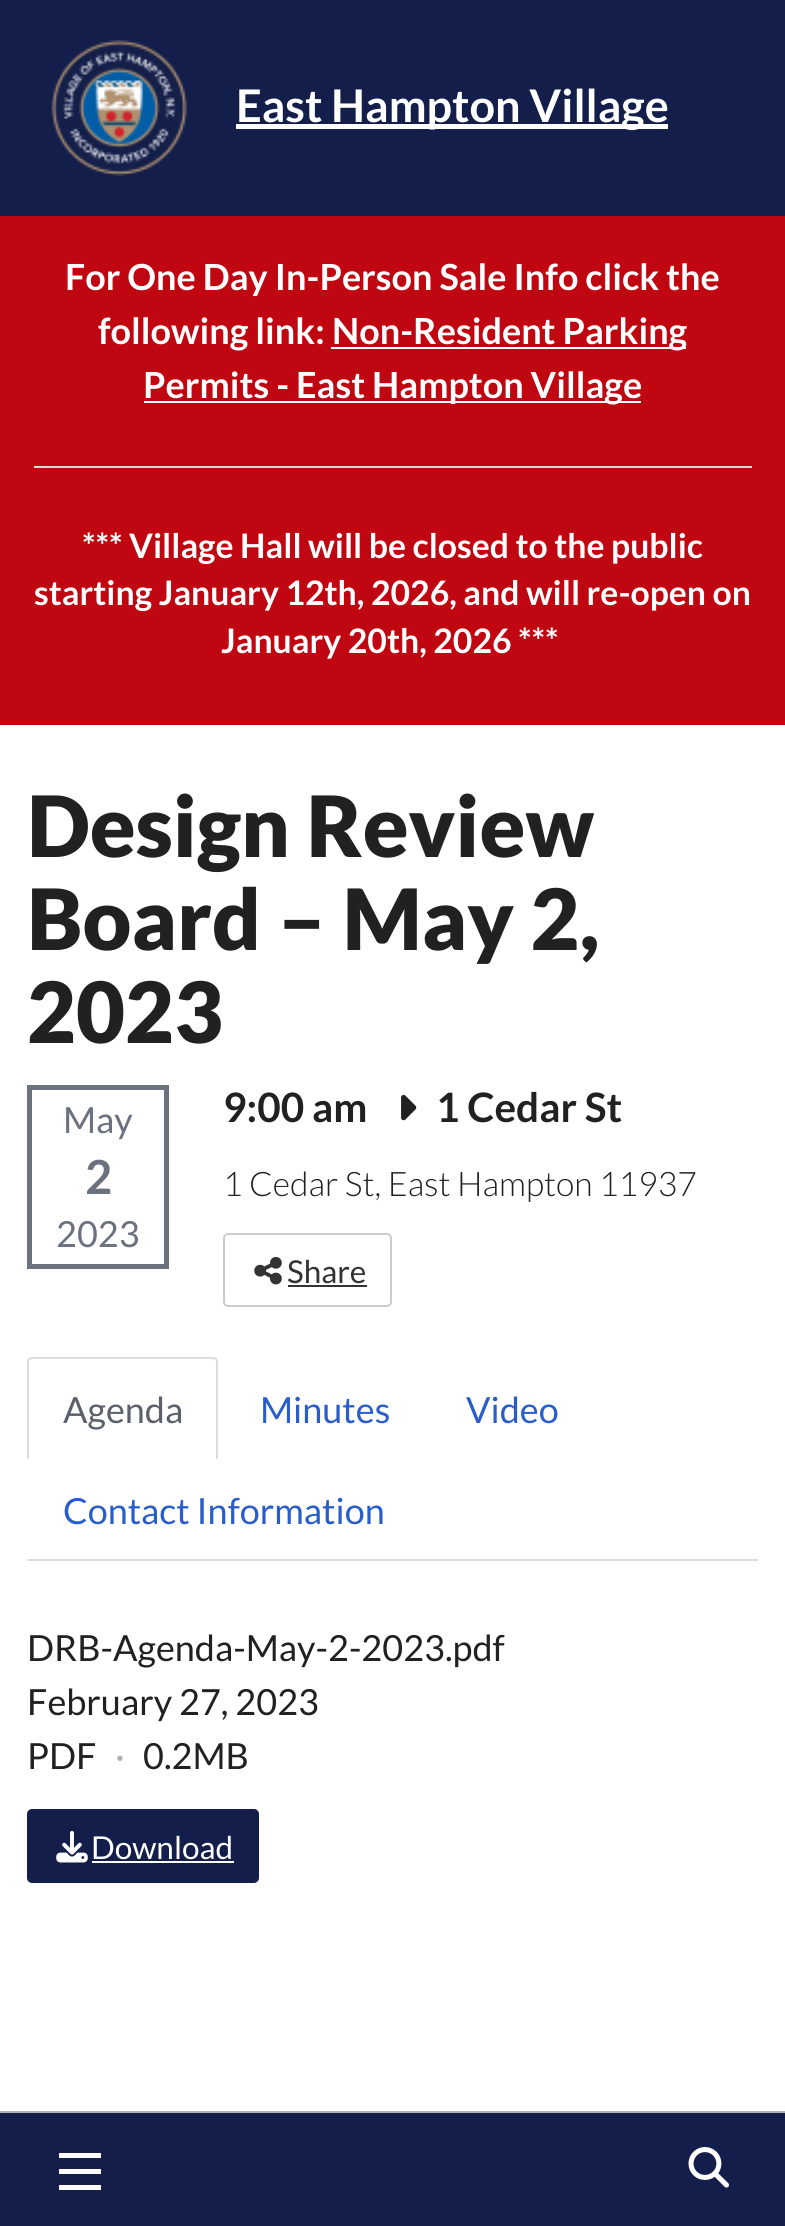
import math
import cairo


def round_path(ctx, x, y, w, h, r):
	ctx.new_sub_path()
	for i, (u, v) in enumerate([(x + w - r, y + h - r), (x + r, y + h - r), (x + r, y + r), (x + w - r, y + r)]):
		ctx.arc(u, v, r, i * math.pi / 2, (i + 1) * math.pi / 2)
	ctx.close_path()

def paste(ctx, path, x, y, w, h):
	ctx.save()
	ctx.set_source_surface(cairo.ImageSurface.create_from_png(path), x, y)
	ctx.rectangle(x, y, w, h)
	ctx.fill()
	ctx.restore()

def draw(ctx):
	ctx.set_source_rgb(1, 1, 1)
	ctx.paint()
	ctx.set_source_rgb(0.078, 0.122, 0.29)
	ctx.rectangle(0, 0, 785, 216)
	ctx.fill()
	paste(ctx, 'media/1.png', 51, 40, 136, 136)
	ctx.set_source_rgb(1, 1, 1)
	ctx.rectangle(236, 124, 432, 5)
	ctx.fill()
	ctx.select_font_face('Lato', cairo.FONT_SLANT_NORMAL, cairo.FONT_WEIGHT_BOLD)
	ctx.set_font_size(45)
	ctx.move_to(236, 122)
	ctx.show_text('East Hampton Village')
	ctx.set_source_rgb(0.078, 0.122, 0.29)
	ctx.rectangle(0, 2113, 785, 113)
	ctx.fill()
	ctx.set_source_rgb(0.682, 0.69, 0.71)
	ctx.rectangle(0, 2111, 785, 2)
	ctx.fill()
	paste(ctx, 'media/2.png', 688, 2147, 41, 41)
	ctx.set_source_rgb(1, 1, 1)
	ctx.rectangle(59, 2169, 42, 5)
	ctx.rectangle(59, 2153, 42, 5)
	ctx.rectangle(59, 2185, 42, 5)
	ctx.fill()
	ctx.set_source_rgb(0.749, 0.027, 0.067)
	ctx.rectangle(0, 216, 785, 509)
	ctx.fill()
	ctx.set_font_size(36)
	ctx.set_source_rgb(1, 1, 1)
	ctx.move_to(65, 290)
	ctx.show_text('For One Day In-Person Sale Info click the')
	ctx.move_to(98, 344)
	ctx.show_text('following link:')
	ctx.rectangle(331, 347, 355, 2)
	ctx.fill()
	ctx.move_to(332, 344)
	ctx.show_text('Non-Resident Parking')
	ctx.rectangle(144, 401, 497, 2)
	ctx.fill()
	ctx.move_to(143, 398)
	ctx.show_text('Permits - East Hampton Village')
	ctx.set_source_rgb(0.839, 0.843, 0.851)
	ctx.rectangle(34, 466, 718, 2)
	ctx.fill()
	ctx.set_font_size(33.75)
	ctx.set_source_rgb(1, 1, 1)
	for x, y, s in [
		(82, 558, '*** Village Hall will be closed to the public'),
		(34, 605, 'starting January 12th, 2026, and will re-open on'),
		(221, 653, 'January 20th, 2026 ***'),
	]:
		ctx.move_to(x, y)
		ctx.show_text(s)
	ctx.select_font_face('Lato Black')
	ctx.set_font_size(84.5)
	ctx.set_source_rgb(0.129, 0.129, 0.129)
	for x, y, s in [
		(27, 857, 'Design Review'),
		(27, 950, 'Board – May 2,'),
		(27, 1043, '2023'),
	]:
		ctx.move_to(x, y)
		ctx.show_text(s)
	ctx.rectangle(29.5, 1087.5, 137, 179)
	ctx.set_source_rgb(0.424, 0.443, 0.498)
	ctx.set_line_width(5)
	ctx.stroke()
	ctx.select_font_face('Lato')
	ctx.set_font_size(36)
	ctx.move_to(63, 1133)
	ctx.show_text('May')
	ctx.select_font_face('Lato', cairo.FONT_SLANT_NORMAL, cairo.FONT_WEIGHT_BOLD)
	ctx.set_font_size(47)
	ctx.move_to(85, 1194)
	ctx.show_text('2')
	ctx.select_font_face('Lato')
	ctx.set_font_size(36)
	ctx.move_to(56, 1247)
	ctx.show_text('2023')
	ctx.select_font_face('Lato', cairo.FONT_SLANT_NORMAL, cairo.FONT_WEIGHT_BOLD)
	ctx.set_font_size(40.5)
	ctx.set_source_rgb(0.129, 0.129, 0.129)
	ctx.move_to(223, 1122)
	ctx.show_text('9:00 am')
	paste(ctx, 'media/3.png', 401, 1094, 16, 27)
	ctx.move_to(436, 1122)
	ctx.show_text('1 Cedar St')
	ctx.select_font_face('Lato Light')
	ctx.set_font_size(33.75)
	ctx.move_to(223, 1196)
	ctx.show_text('1 Cedar St, East Hampton 11937')
	round_path(ctx, 224, 1234, 167, 72, 4)
	ctx.set_source_rgb(0.8, 0.8, 0.8)
	ctx.set_line_width(2)
	ctx.stroke()
	paste(ctx, 'media/4.png', 254, 1256, 28, 29)
	ctx.select_font_face('Lato')
	ctx.set_font_size(31.5)
	ctx.set_source_rgb(0.2, 0.2, 0.2)
	ctx.move_to(287, 1283)
	ctx.show_text('Share')
	ctx.rectangle(288, 1285, 79, 2)
	ctx.fill()
	ctx.set_source_rgb(0.867, 0.867, 0.867)
	ctx.rectangle(27, 1559, 731, 2)
	ctx.fill()
	ctx.new_path()
	ctx.move_to(32, 1357)
	ctx.line_to(28, 1358)
	ctx.line_to(30, 1360)
	ctx.line_to(32, 1359)
	ctx.line_to(214, 1359)
	ctx.line_to(215, 1360)
	ctx.line_to(217, 1358)
	ctx.line_to(214, 1357)
	ctx.close_path()
	ctx.fill()
	ctx.new_path()
	ctx.move_to(218, 1460)
	ctx.line_to(218, 1361)
	ctx.line_to(217, 1358)
	ctx.line_to(215, 1360)
	ctx.line_to(216, 1361)
	ctx.line_to(216, 1458)
	ctx.close_path()
	ctx.fill()
	ctx.new_path()
	ctx.move_to(27, 1361)
	ctx.line_to(27, 1460)
	ctx.line_to(29, 1458)
	ctx.line_to(29, 1361)
	ctx.line_to(30, 1360)
	ctx.line_to(28, 1358)
	ctx.curve_to(28, 1359, 27, 1360, 27, 1361)
	ctx.close_path()
	ctx.fill()
	ctx.set_font_size(36)
	ctx.set_source_rgb(0.357, 0.38, 0.42)
	ctx.move_to(63, 1423)
	ctx.show_text('Agenda')
	ctx.set_source_rgb(0.157, 0.365, 0.792)
	for x, y, s in [
		(260, 1423, 'Minutes'),
		(466, 1423, 'Video'),
		(63, 1524, 'Contact Information'),
	]:
		ctx.move_to(x, y)
		ctx.show_text(s)
	ctx.set_source_rgb(0.129, 0.129, 0.129)
	for x, y, s in [
		(27, 1661, 'DRB-Agenda-May-2-2023.pdf'),
		(27, 1715, 'February 27, 2023'),
		(27, 1769, 'PDF'),
	]:
		ctx.move_to(x, y)
		ctx.show_text(s)
	ctx.set_source_rgb(0.682, 0.69, 0.71)
	ctx.move_to(115, 1769)
	ctx.show_text('·')
	ctx.set_source_rgb(0.129, 0.129, 0.129)
	ctx.move_to(143, 1769)
	ctx.show_text('0.2MB')
	ctx.set_source_rgb(0.078, 0.122, 0.29)
	round_path(ctx, 28, 1810, 230, 72, 4)
	ctx.fill_preserve()
	ctx.stroke()
	paste(ctx, 'media/5.png', 56, 1831, 32, 32)
	ctx.set_font_size(31.5)
	ctx.set_source_rgb(1, 1, 1)
	ctx.move_to(91, 1859)
	ctx.show_text('Download')
	ctx.rectangle(92, 1861, 142, 2)
	ctx.fill()


surface = cairo.ImageSurface(cairo.FORMAT_RGB24, 785, 2226)
ctx = cairo.Context(surface)
options = cairo.FontOptions()
options.set_hint_metrics(cairo.HINT_METRICS_OFF)
options.set_hint_style(cairo.HINT_STYLE_NONE)
ctx.set_font_options(options)
ctx.set_miter_limit(4)
draw(ctx)
surface.write_to_png('image.png')
